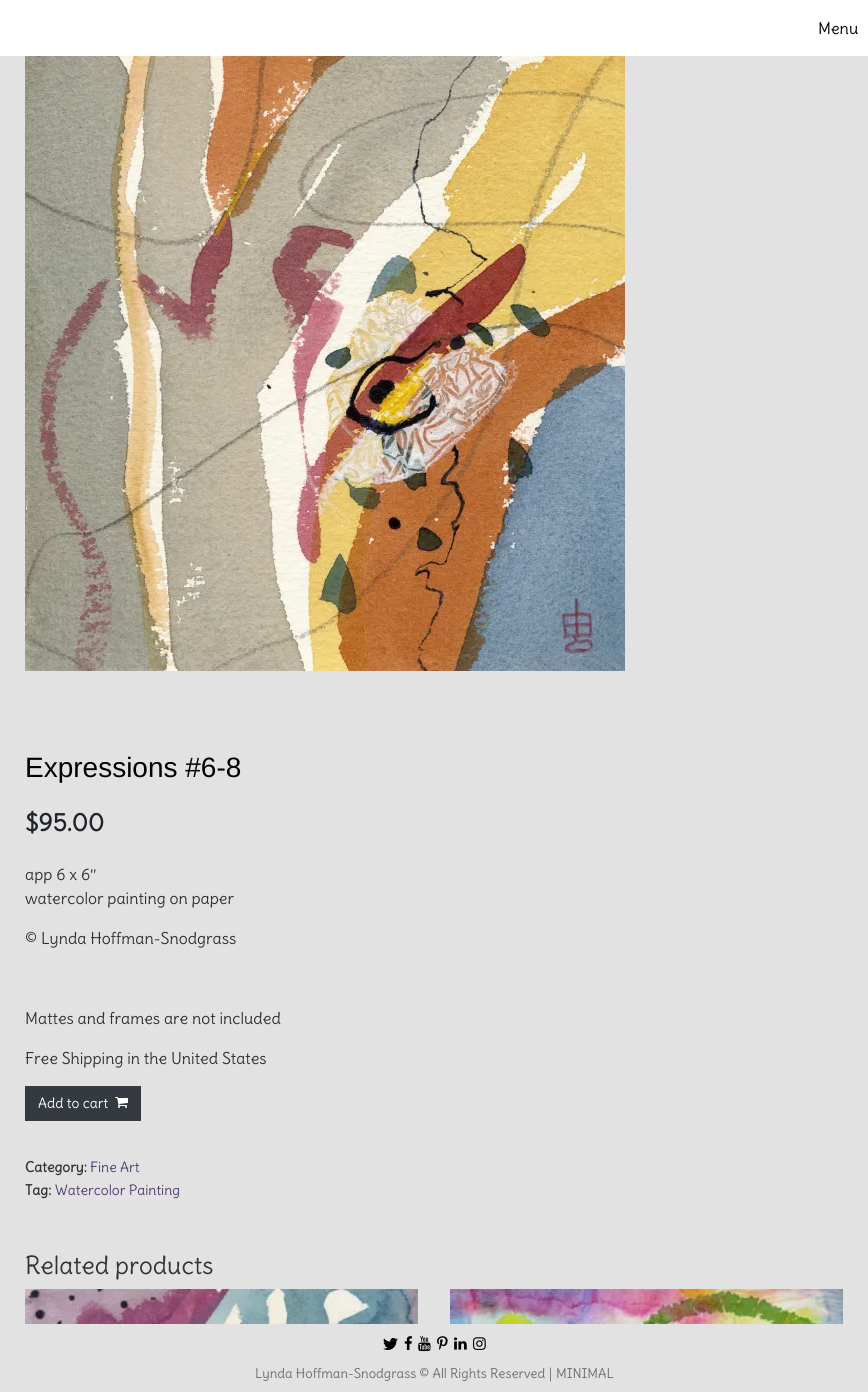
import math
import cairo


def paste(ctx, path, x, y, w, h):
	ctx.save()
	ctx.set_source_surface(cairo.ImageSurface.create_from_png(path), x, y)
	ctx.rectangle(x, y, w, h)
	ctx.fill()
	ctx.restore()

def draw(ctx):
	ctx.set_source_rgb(0.886, 0.886, 0.886)
	ctx.paint()
	ctx.set_source_rgb(1, 1, 1)
	ctx.rectangle(0, 0, 868, 56)
	ctx.fill()
	ctx.select_font_face('Delius')
	ctx.set_font_size(16)
	ctx.set_source_rgb(0, 0, 0)
	ctx.move_to(818, 34)
	ctx.show_text('Menu')
	paste(ctx, 'media/1.png', 25, 56, 600, 615)
	ctx.select_font_face('Liberation Sans')
	ctx.set_font_size(28)
	ctx.move_to(25, 777)
	ctx.show_text('Expressions #6-8')
	ctx.select_font_face('Delius', cairo.FONT_SLANT_NORMAL, cairo.FONT_WEIGHT_BOLD)
	ctx.set_font_size(24.5)
	ctx.set_source_rgb(0.129, 0.145, 0.161)
	ctx.move_to(25, 831)
	ctx.show_text('$95.00')
	ctx.select_font_face('Delius')
	ctx.set_font_size(16)
	ctx.set_source_rgb(0.2, 0.2, 0.2)
	ctx.move_to(25, 880)
	ctx.show_text('app 6 x 6')
	ctx.select_font_face('Liberation Serif')
	ctx.move_to(90, 880)
	ctx.show_text('″')
	ctx.select_font_face('Delius')
	for x, y, s in [
		(25, 904, 'watercolor painting on paper'),
		(25, 944, '© Lynda Hoffman-Snodgrass'),
		(25, 1024, 'Mattes and frames are not included'),
		(25, 1064, 'Free Shipping in the United States'),
	]:
		ctx.move_to(x, y)
		ctx.show_text(s)
	ctx.set_source_rgb(0.204, 0.227, 0.251)
	ctx.rectangle(25, 1086, 116, 35)
	ctx.fill()
	ctx.set_font_size(14)
	ctx.set_source_rgb(1, 1, 1)
	ctx.move_to(38, 1108)
	ctx.show_text('Add to cart')
	paste(ctx, 'media/2.png', 115, 1097, 13, 11)
	ctx.select_font_face('Delius', cairo.FONT_SLANT_NORMAL, cairo.FONT_WEIGHT_BOLD)
	ctx.set_source_rgb(0.2, 0.2, 0.2)
	ctx.move_to(25, 1172)
	ctx.show_text('Category:')
	ctx.select_font_face('Delius')
	ctx.set_source_rgb(0.322, 0.231, 0.439)
	ctx.move_to(90, 1172)
	ctx.show_text('Fine Art')
	ctx.select_font_face('Delius', cairo.FONT_SLANT_NORMAL, cairo.FONT_WEIGHT_BOLD)
	ctx.set_source_rgb(0.2, 0.2, 0.2)
	ctx.move_to(25, 1195)
	ctx.show_text('Tag:')
	ctx.select_font_face('Delius')
	ctx.set_source_rgb(0.322, 0.231, 0.439)
	ctx.move_to(55, 1195)
	ctx.show_text('Watercolor Painting')
	ctx.set_font_size(24.5)
	ctx.set_source_rgb(0.2, 0.2, 0.2)
	ctx.move_to(25, 1274)
	ctx.show_text('Related products')
	paste(ctx, 'media/3.png', 25, 1289, 393, 35)
	paste(ctx, 'media/4.png', 450, 1289, 393, 35)
	paste(ctx, 'media/5.png', 383, 1337, 15, 13)
	paste(ctx, 'media/6.png', 404, 1336, 8, 14)
	paste(ctx, 'media/7.png', 418, 1336, 13, 16)
	paste(ctx, 'media/8.png', 437, 1336, 11, 14)
	paste(ctx, 'media/9.png', 454, 1337, 13, 13)
	paste(ctx, 'media/10.png', 473, 1337, 13, 13)
	ctx.set_font_size(13.2)
	ctx.set_source_rgb(0.427, 0.427, 0.427)
	for x, y, s in [
		(255, 1378, 'Lynda Hoffman-Snodgrass © All Rights Reserved'),
		(549, 1378, '|'),
		(556, 1378, 'MINIMAL'),
	]:
		ctx.move_to(x, y)
		ctx.show_text(s)


surface = cairo.ImageSurface(cairo.FORMAT_RGB24, 868, 1392)
ctx = cairo.Context(surface)
options = cairo.FontOptions()
options.set_hint_metrics(cairo.HINT_METRICS_OFF)
options.set_hint_style(cairo.HINT_STYLE_NONE)
ctx.set_font_options(options)
ctx.set_miter_limit(4)
draw(ctx)
surface.write_to_png('image.png')
